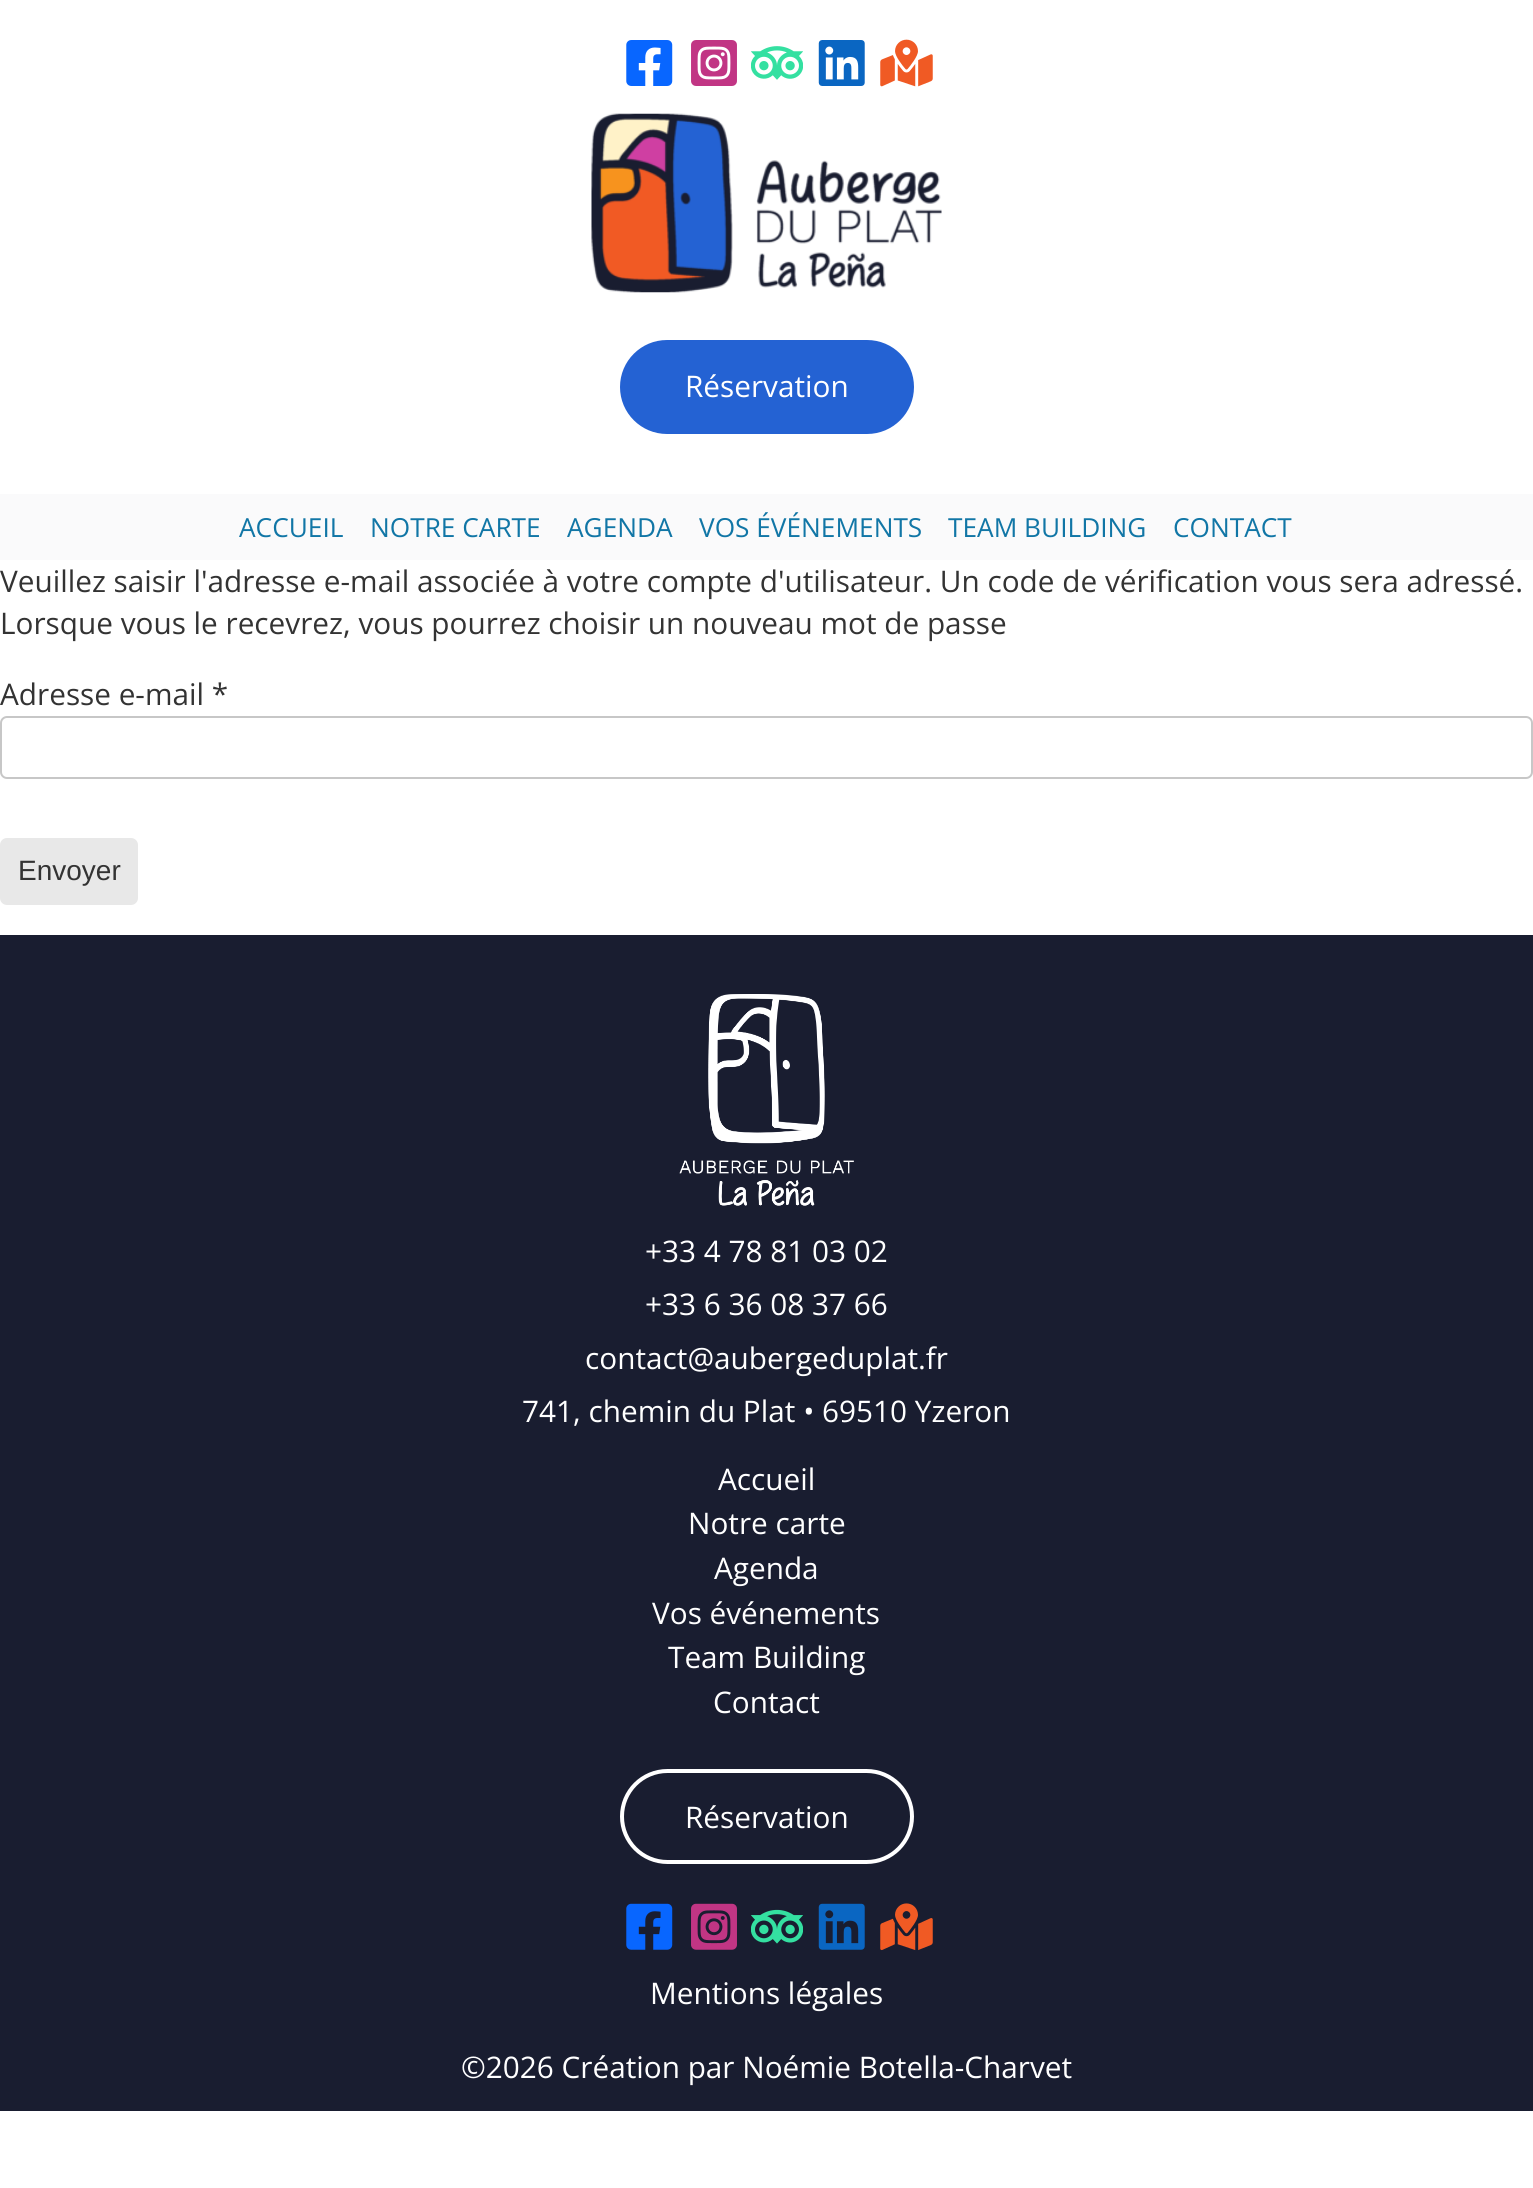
import math
import cairo


def round_path(ctx, x, y, w, h, r):
	ctx.new_sub_path()
	for i, (u, v) in enumerate([(x + w - r, y + h - r), (x + r, y + h - r), (x + r, y + r), (x + w - r, y + r)]):
		ctx.arc(u, v, r, i * math.pi / 2, (i + 1) * math.pi / 2)
	ctx.close_path()

def paste(ctx, path, x, y, w, h):
	ctx.save()
	ctx.set_source_surface(cairo.ImageSurface.create_from_png(path), x, y)
	ctx.rectangle(x, y, w, h)
	ctx.fill()
	ctx.restore()

def draw(ctx):
	ctx.set_source_rgb(1, 1, 1)
	ctx.paint()
	paste(ctx, 'media/1.png', 626, 40, 47, 46)
	paste(ctx, 'media/2.png', 691, 40, 46, 46)
	paste(ctx, 'media/3.png', 751, 46, 52, 34)
	paste(ctx, 'media/4.png', 818, 40, 47, 46)
	paste(ctx, 'media/5.png', 880, 39, 53, 48)
	paste(ctx, 'media/6.png', 591, 113, 351, 180)
	ctx.set_source_rgb(0.141, 0.384, 0.827)
	round_path(ctx, 622, 342, 290, 90, 45)
	ctx.fill_preserve()
	ctx.set_line_width(4)
	ctx.stroke()
	ctx.select_font_face('Open Sans')
	ctx.set_font_size(29.75)
	ctx.set_source_rgb(1, 1, 1)
	ctx.move_to(685, 397)
	ctx.show_text('Réservation')
	ctx.set_source_rgb(0.98, 0.98, 0.984)
	ctx.rectangle(0, 494, 1533, 66)
	ctx.fill()
	ctx.set_font_size(26.25)
	ctx.set_source_rgb(0.067, 0.463, 0.651)
	for x, y, s in [
		(239, 537, 'ACCUEIL'),
		(370, 537, 'NOTRE CARTE'),
		(567, 537, 'AGENDA'),
		(699, 537, 'VOS ÉVÉNEMENTS'),
		(948, 537, 'TEAM BUILDING'),
		(1173, 537, 'CONTACT'),
	]:
		ctx.move_to(x, y)
		ctx.show_text(s)
	ctx.set_font_size(29.75)
	ctx.set_source_rgb(0.2, 0.2, 0.2)
	for x, y, s in [
		(0, 592, 'Veuillez saisir l\'adresse e-mail associée à votre compte d\'utilisateur. Un code de vérification vous sera adressé.'),
		(0, 634, 'Lorsque vous le recevrez, vous pourrez choisir un nouveau mot de passe'),
		(0, 705, 'Adresse e-mail *'),
	]:
		ctx.move_to(x, y)
		ctx.show_text(s)
	round_path(ctx, 1, 717, 1531, 61, 6)
	ctx.set_source_rgb(0.78, 0.78, 0.78)
	ctx.set_line_width(2)
	ctx.stroke()
	ctx.set_source_rgb(0.91, 0.91, 0.91)
	round_path(ctx, 0, 838, 138, 67, 7)
	ctx.fill()
	ctx.select_font_face('Liberation Sans')
	ctx.set_font_size(28)
	ctx.set_source_rgb(0.2, 0.2, 0.2)
	ctx.move_to(18, 880)
	ctx.show_text('Envoyer')
	ctx.set_source_rgb(0.098, 0.114, 0.188)
	ctx.rectangle(0, 935, 1533, 1176)
	ctx.fill()
	paste(ctx, 'media/7.png', 679, 994, 175, 212)
	ctx.select_font_face('Open Sans')
	ctx.set_font_size(29.75)
	ctx.set_source_rgb(1, 1, 1)
	for x, y, s in [
		(645, 1262, '+33 4 78 81 03 02'),
		(645, 1315, '+33 6 36 08 37 66'),
		(585, 1369, 'contact@aubergeduplat.fr'),
		(522, 1422, '741, chemin du Plat • 69510 Yzeron'),
		(718, 1490, 'Accueil'),
		(688, 1534, 'Notre carte'),
		(714, 1579, 'Agenda'),
		(652, 1624, 'Vos événements'),
		(668, 1668, 'Team Building'),
		(713, 1713, 'Contact'),
	]:
		ctx.move_to(x, y)
		ctx.show_text(s)
	round_path(ctx, 622, 1771, 290, 91, 45.5)
	ctx.set_line_width(4)
	ctx.stroke()
	ctx.move_to(685, 1828)
	ctx.show_text('Réservation')
	paste(ctx, 'media/8.png', 626, 1903, 47, 47)
	paste(ctx, 'media/9.png', 691, 1903, 46, 47)
	paste(ctx, 'media/10.png', 751, 1909, 52, 35)
	paste(ctx, 'media/11.png', 818, 1903, 47, 47)
	paste(ctx, 'media/12.png', 880, 1903, 53, 48)
	ctx.move_to(650, 2004)
	ctx.show_text('Mentions légales')
	ctx.move_to(461, 2078)
	ctx.show_text('©2026 Création par Noémie Botella-Charvet')


surface = cairo.ImageSurface(cairo.FORMAT_RGB24, 1533, 2188)
ctx = cairo.Context(surface)
options = cairo.FontOptions()
options.set_hint_metrics(cairo.HINT_METRICS_OFF)
options.set_hint_style(cairo.HINT_STYLE_NONE)
ctx.set_font_options(options)
ctx.set_miter_limit(4)
draw(ctx)
surface.write_to_png('image.png')
